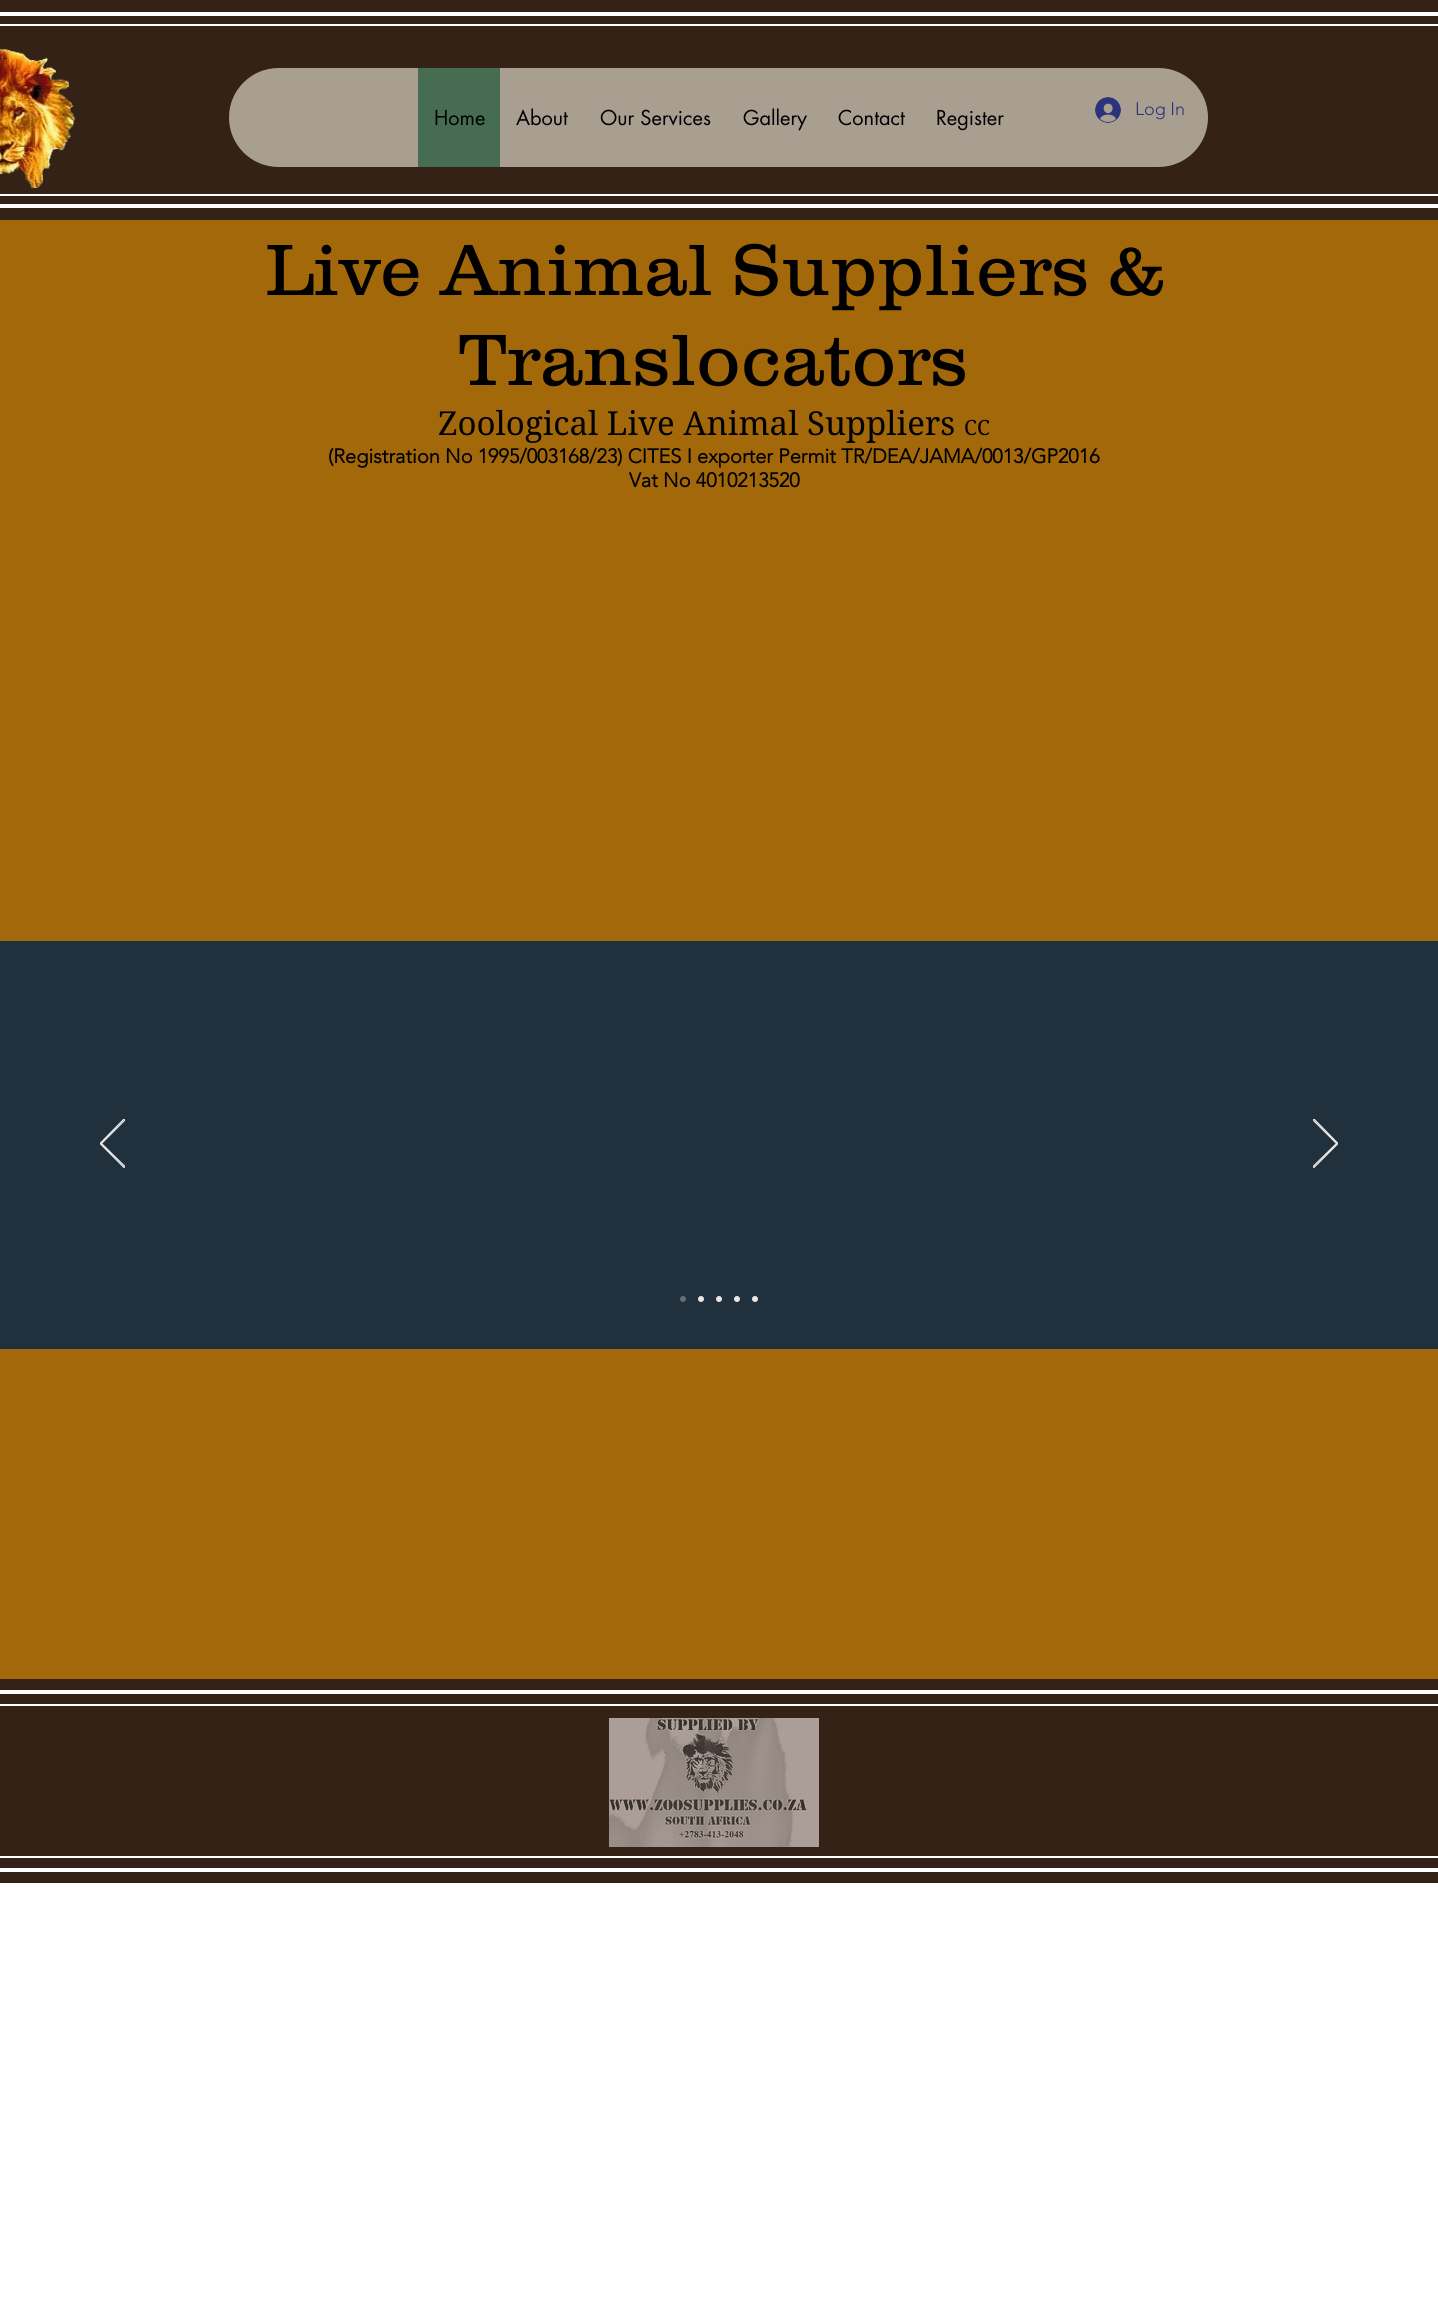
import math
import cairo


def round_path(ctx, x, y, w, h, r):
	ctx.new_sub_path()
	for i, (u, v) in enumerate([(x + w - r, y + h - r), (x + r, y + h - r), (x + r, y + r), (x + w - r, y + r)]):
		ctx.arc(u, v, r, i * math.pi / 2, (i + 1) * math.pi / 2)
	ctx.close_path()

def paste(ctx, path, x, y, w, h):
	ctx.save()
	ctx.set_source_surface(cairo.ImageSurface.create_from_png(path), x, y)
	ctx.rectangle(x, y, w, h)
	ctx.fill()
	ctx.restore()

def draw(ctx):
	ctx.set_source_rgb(1, 1, 1)
	ctx.paint()
	ctx.set_source_rgb(0.204, 0.133, 0.086)
	ctx.rectangle(0, 0, 1438, 220)
	ctx.fill()
	ctx.set_source_rgb(1, 1, 1)
	ctx.rectangle(0, 12, 1438, 4)
	ctx.rectangle(0, 204, 1438, 4)
	ctx.rectangle(0, 24, 1438, 2)
	ctx.rectangle(0, 194, 1438, 2)
	ctx.fill()
	paste(ctx, 'media/1.png', 0, 49, 76, 139)
	ctx.set_source_rgb(0.663, 0.624, 0.565)
	round_path(ctx, 229, 68, 979, 99, 49.5)
	ctx.fill()
	ctx.set_source_rgb(0.275, 0.424, 0.322)
	ctx.rectangle(418, 68, 82, 99)
	ctx.fill()
	ctx.select_font_face('futura')
	ctx.set_font_size(20)
	ctx.set_source_rgb(0, 0, 0)
	for x, y, s in [
		(434, 125, 'Home'),
		(516, 125, 'About'),
		(600, 125, 'Our Services'),
		(743, 125, 'Gallery'),
		(838, 125, 'Contact'),
		(936, 125, 'Register'),
	]:
		ctx.move_to(x, y)
		ctx.show_text(s)
	paste(ctx, 'media/2.png', 1095, 97, 26, 26)
	ctx.select_font_face('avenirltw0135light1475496 Light')
	ctx.set_font_size(18)
	ctx.set_source_rgb(0.169, 0.2, 0.482)
	ctx.move_to(1135, 115)
	ctx.show_text('Log In')
	ctx.set_source_rgb(0.639, 0.408, 0.039)
	ctx.rectangle(0, 220, 1438, 1459)
	ctx.fill()
	ctx.select_font_face('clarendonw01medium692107 Light')
	ctx.set_font_size(75)
	ctx.set_source_rgb(0, 0, 0)
	ctx.move_to(265, 295)
	ctx.show_text('Live Animal Suppliers &')
	ctx.move_to(459, 385)
	ctx.show_text('Translocators')
	ctx.select_font_face('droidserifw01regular')
	ctx.set_font_size(33)
	ctx.move_to(438, 435)
	ctx.show_text('Zoological Live Animal Suppliers')
	ctx.set_font_size(21)
	ctx.move_to(964, 435)
	ctx.show_text('CC')
	ctx.select_font_face('avenirltw0135light1475496', cairo.FONT_SLANT_NORMAL, cairo.FONT_WEIGHT_BOLD)
	ctx.set_font_size(20)
	ctx.move_to(328, 463)
	ctx.show_text('(Registration No 1995/003168/23) CITES I exporter Permit TR/DEA/JAMA/0013/GP2016')
	ctx.move_to(629, 487)
	ctx.show_text('Vat No 4010213520')
	ctx.set_source_rgb(0.125, 0.188, 0.235)
	ctx.rectangle(0, 941, 1438, 408)
	ctx.fill()
	ctx.save()
	ctx.rectangle(100, 1119, 25, 49)
	ctx.clip()
	ctx.new_path()
	ctx.move_to(124, 1167.5)
	ctx.line_to(100, 1143.5)
	ctx.line_to(124, 1119)
	ctx.line_to(125, 1120)
	ctx.line_to(101.5, 1143.5)
	ctx.line_to(125, 1166.5)
	ctx.close_path()
	ctx.set_source_rgb(0.91, 0.902, 0.902)
	ctx.set_line_width(1.2)
	ctx.stroke()
	ctx.restore()
	ctx.save()
	ctx.rectangle(1313, 1119, 25, 49)
	ctx.clip()
	ctx.new_path()
	ctx.move_to(1314, 1167.5)
	ctx.line_to(1338, 1143.5)
	ctx.line_to(1314, 1119)
	ctx.line_to(1313, 1120)
	ctx.line_to(1336.5, 1143.5)
	ctx.line_to(1313, 1166.5)
	ctx.close_path()
	ctx.set_source_rgb(0.91, 0.902, 0.902)
	ctx.set_line_width(1.2)
	ctx.stroke()
	ctx.restore()
	ctx.set_source_rgb(0.388, 0.431, 0.467)
	ctx.arc(683, 1299, 3, 0, 2 * math.pi)
	ctx.fill()
	ctx.set_source_rgb(0.91, 0.902, 0.902)
	ctx.arc(701, 1299, 3, 0, 2 * math.pi)
	ctx.fill()
	ctx.arc(719, 1299, 3, 0, 2 * math.pi)
	ctx.fill()
	ctx.arc(737, 1299, 3, 0, 2 * math.pi)
	ctx.fill()
	ctx.arc(755, 1299, 3, 0, 2 * math.pi)
	ctx.fill()
	ctx.set_source_rgb(0.204, 0.133, 0.086)
	ctx.rectangle(0, 1679, 1438, 204)
	ctx.fill()
	ctx.set_source_rgb(1, 1, 1)
	ctx.rectangle(0, 1690, 1438, 4)
	ctx.rectangle(0, 1868, 1438, 4)
	ctx.rectangle(0, 1704, 1438, 2)
	ctx.rectangle(0, 1856, 1438, 2)
	ctx.fill()
	paste(ctx, 'media/3.png', 609, 1718, 210, 129)


surface = cairo.ImageSurface(cairo.FORMAT_RGB24, 1438, 2302)
ctx = cairo.Context(surface)
options = cairo.FontOptions()
options.set_hint_metrics(cairo.HINT_METRICS_OFF)
options.set_hint_style(cairo.HINT_STYLE_NONE)
ctx.set_font_options(options)
ctx.set_miter_limit(4)
draw(ctx)
surface.write_to_png('image.png')
